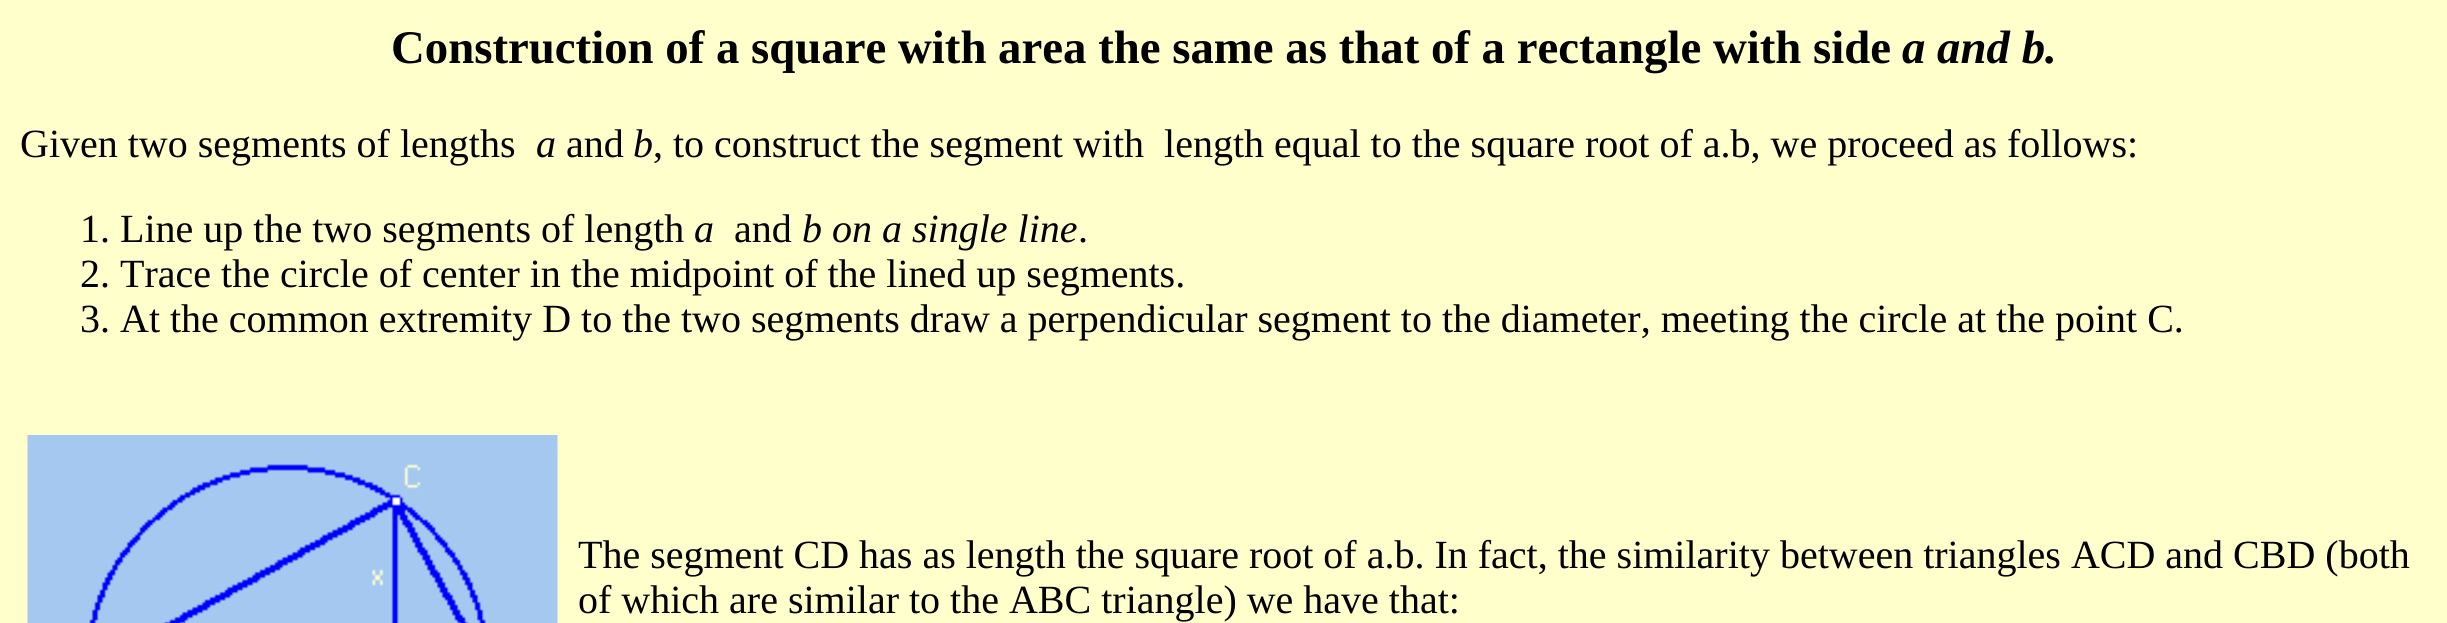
import math
import cairo


def paste(ctx, path, x, y, w, h):
	ctx.save()
	ctx.set_source_surface(cairo.ImageSurface.create_from_png(path), x, y)
	ctx.rectangle(x, y, w, h)
	ctx.fill()
	ctx.restore()

def draw(ctx):
	ctx.set_source_rgb(1, 1, 0.8)
	ctx.paint()
	ctx.select_font_face('Liberation Serif', cairo.FONT_SLANT_NORMAL, cairo.FONT_WEIGHT_BOLD)
	ctx.set_font_size(46.8)
	ctx.set_source_rgb(0, 0, 0)
	ctx.move_to(391, 63)
	ctx.show_text('Construction of a square with area the same as that of a rectangle with side')
	ctx.select_font_face('Liberation Serif', cairo.FONT_SLANT_ITALIC, cairo.FONT_WEIGHT_BOLD)
	ctx.move_to(1902, 63)
	ctx.show_text('a and b.')
	ctx.select_font_face('Liberation Serif')
	ctx.set_font_size(40)
	ctx.move_to(20, 157)
	ctx.show_text('Given two segments of lengths')
	ctx.select_font_face('Liberation Serif', cairo.FONT_SLANT_ITALIC)
	ctx.move_to(536, 157)
	ctx.show_text('a')
	ctx.select_font_face('Liberation Serif')
	ctx.move_to(566, 157)
	ctx.show_text('and')
	ctx.select_font_face('Liberation Serif', cairo.FONT_SLANT_ITALIC)
	ctx.move_to(633, 157)
	ctx.show_text('b')
	ctx.select_font_face('Liberation Serif')
	ctx.move_to(653, 157)
	ctx.show_text(', to construct the segment with  length equal to the square root of a.b, we proceed as follows:')
	ctx.move_to(80, 242)
	ctx.show_text('1. Line up the two segments of length')
	ctx.select_font_face('Liberation Serif', cairo.FONT_SLANT_ITALIC)
	ctx.move_to(694, 242)
	ctx.show_text('a')
	ctx.select_font_face('Liberation Serif')
	ctx.move_to(734, 242)
	ctx.show_text('and')
	ctx.select_font_face('Liberation Serif', cairo.FONT_SLANT_ITALIC)
	ctx.move_to(802, 242)
	ctx.show_text('b on a single line')
	ctx.select_font_face('Liberation Serif')
	for x, y, s in [
		(1078, 242, '.'),
		(80, 287, '2. Trace the circle of center in the midpoint of the lined up segments.'),
		(80, 332, '3. At the common extremity D to the two segments draw a perpendicular segment to the diameter, meeting the circle at the point C.'),
	]:
		ctx.move_to(x, y)
		ctx.show_text(s)
	paste(ctx, 'media/1.png', 27, 435, 531, 188)
	ctx.move_to(578, 568)
	ctx.show_text('The segment CD has as length the square root of a.b. In fact, the similarity between triangles ACD and CBD (both')
	ctx.move_to(578, 613)
	ctx.show_text('of which are similar to the ABC triangle) we have that:')


surface = cairo.ImageSurface(cairo.FORMAT_RGB24, 2447, 623)
ctx = cairo.Context(surface)
options = cairo.FontOptions()
options.set_hint_metrics(cairo.HINT_METRICS_OFF)
options.set_hint_style(cairo.HINT_STYLE_NONE)
ctx.set_font_options(options)
ctx.set_miter_limit(4)
draw(ctx)
surface.write_to_png('image.png')
